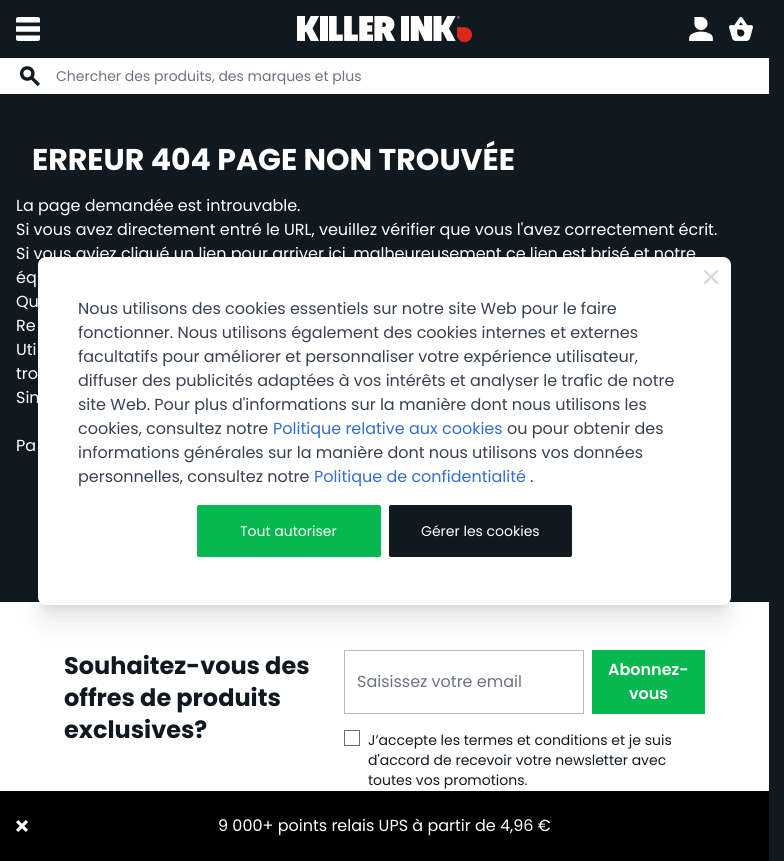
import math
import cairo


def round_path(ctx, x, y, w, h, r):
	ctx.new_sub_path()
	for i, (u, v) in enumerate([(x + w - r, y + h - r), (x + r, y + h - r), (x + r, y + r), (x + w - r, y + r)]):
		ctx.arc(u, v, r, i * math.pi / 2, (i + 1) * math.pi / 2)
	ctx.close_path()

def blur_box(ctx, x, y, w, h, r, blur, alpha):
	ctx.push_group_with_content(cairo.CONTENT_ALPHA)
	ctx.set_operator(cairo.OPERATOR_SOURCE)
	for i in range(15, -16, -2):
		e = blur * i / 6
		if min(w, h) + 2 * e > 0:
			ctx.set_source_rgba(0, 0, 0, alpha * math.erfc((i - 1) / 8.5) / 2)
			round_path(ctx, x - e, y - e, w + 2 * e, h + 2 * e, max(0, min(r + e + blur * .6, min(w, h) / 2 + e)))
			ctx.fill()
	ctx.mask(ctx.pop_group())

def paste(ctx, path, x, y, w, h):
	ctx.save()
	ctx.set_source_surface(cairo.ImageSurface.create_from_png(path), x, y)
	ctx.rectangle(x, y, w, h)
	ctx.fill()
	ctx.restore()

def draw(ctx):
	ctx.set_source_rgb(0.063, 0.094, 0.125)
	ctx.paint()
	paste(ctx, 'media/1.png', 16, 17, 24, 24)
	paste(ctx, 'media/2.png', 297, 16, 175, 26)
	paste(ctx, 'media/3.png', 689, 17, 24, 24)
	paste(ctx, 'media/4.png', 729, 17, 24, 24)
	ctx.set_source_rgb(1, 1, 1)
	ctx.rectangle(0, 58, 769, 36)
	ctx.fill()
	paste(ctx, 'media/5.png', 20, 66, 20, 21)
	ctx.select_font_face('Poppins')
	ctx.set_font_size(14)
	ctx.set_source_rgb(0.42, 0.447, 0.502)
	ctx.move_to(56, 81)
	ctx.show_text('Chercher des produits, des marques et plus')
	ctx.select_font_face('Poppins', cairo.FONT_SLANT_NORMAL, cairo.FONT_WEIGHT_BOLD)
	ctx.set_font_size(30)
	ctx.set_source_rgb(1, 1, 1)
	ctx.move_to(32, 170)
	ctx.show_text('ERREUR 404 PAGE NON TROUVÉE')
	ctx.select_font_face('Poppins')
	ctx.set_font_size(16)
	for x, y, s in [
		(16, 211, 'La page demandée est introuvable.'),
		(16, 235, 'Si vous avez directement entré le URL, veuillez vérifier que vous l\'avez correctement écrit.'),
		(16, 259, 'Si vous aviez cliqué un lien pour arriver ici, malheureusement ce lien est brisé et notre'),
		(16, 283, 'éq'),
		(16, 307, 'Qu'),
		(16, 331, 'Re'),
		(16, 355, 'Uti'),
		(16, 379, 'tro'),
		(16, 403, 'Sin'),
		(16, 451, 'Pa'),
	]:
		ctx.move_to(x, y)
		ctx.show_text(s)
	ctx.rectangle(0, 602, 769, 189)
	ctx.fill()
	ctx.set_source_rgb(0, 0, 0)
	blur_box(ctx, 44, 271, 681, 336, 2, 5, 0.1)
	ctx.rectangle(344.5, 650.5, 239, 63)
	ctx.set_source_rgb(0.718, 0.729, 0.737)
	ctx.set_line_width(1)
	ctx.stroke()
	ctx.set_source_rgb(0.031, 0.718, 0.31)
	ctx.rectangle(592, 650, 113, 64)
	ctx.fill()
	ctx.set_source_rgb(0, 0, 0)
	blur_box(ctx, 43, 282, 683, 338, 3, 12.5, 0.1)
	ctx.set_source_rgb(1, 1, 1)
	round_path(ctx, 38, 257, 693, 348, 8)
	ctx.fill()
	ctx.new_path()
	ctx.move_to(705, 283)
	ctx.line_to(717, 271)
	ctx.move_to(705, 271)
	ctx.line_to(717, 283)
	ctx.set_source_rgb(0.82, 0.835, 0.859)
	ctx.set_line_width(2)
	ctx.set_line_cap(cairo.LINE_CAP_ROUND)
	ctx.set_line_join(cairo.LINE_JOIN_ROUND)
	ctx.stroke()
	ctx.set_source_rgb(0.216, 0.255, 0.318)
	for x, y, s in [
		(78, 314, 'Nous utilisons des cookies essentiels sur notre site Web pour le faire'),
		(78, 338, 'fonctionner. Nous utilisons également des cookies internes et externes'),
		(78, 362, 'facultatifs pour améliorer et personnaliser votre expérience utilisateur,'),
		(78, 386, 'diffuser des publicités adaptées à vos intérêts et analyser le trafic de notre'),
		(78, 410, 'site Web. Pour plus d\'informations sur la manière dont nous utilisons les'),
		(78, 434, 'cookies, consultez notre'),
	]:
		ctx.move_to(x, y)
		ctx.show_text(s)
	ctx.set_source_rgb(0.196, 0.431, 0.82)
	ctx.move_to(273, 434)
	ctx.show_text('Politique relative aux cookies')
	ctx.set_source_rgb(0.216, 0.255, 0.318)
	for x, y, s in [
		(507, 434, 'ou pour obtenir des'),
		(78, 458, 'informations générales sur la manière dont nous utilisons vos données'),
		(78, 482, 'personnelles, consultez notre'),
	]:
		ctx.move_to(x, y)
		ctx.show_text(s)
	ctx.set_source_rgb(0.196, 0.431, 0.82)
	ctx.move_to(314, 482)
	ctx.show_text('Politique de confidentialité')
	ctx.set_source_rgb(0.216, 0.255, 0.318)
	ctx.move_to(530, 482)
	ctx.show_text('.')
	ctx.set_source_rgb(0.031, 0.718, 0.31)
	round_path(ctx, 197, 505, 184, 52, 2)
	ctx.fill()
	ctx.set_font_size(14)
	ctx.set_source_rgb(1, 1, 1)
	ctx.move_to(240, 536)
	ctx.show_text('Tout autoriser')
	ctx.set_source_rgb(0.063, 0.094, 0.125)
	round_path(ctx, 389, 505, 183, 52, 2)
	ctx.fill()
	ctx.set_source_rgb(1, 1, 1)
	ctx.move_to(421, 536)
	ctx.show_text('Gérer les cookies')
	ctx.select_font_face('Poppins', cairo.FONT_SLANT_NORMAL, cairo.FONT_WEIGHT_BOLD)
	ctx.set_font_size(24)
	ctx.set_source_rgb(0.063, 0.094, 0.125)
	for x, y, s in [
		(64, 674, 'Souhaitez-vous des'),
		(64, 706, 'offres de produits'),
		(64, 738, 'exclusives?'),
	]:
		ctx.move_to(x, y)
		ctx.show_text(s)
	ctx.select_font_face('Poppins')
	ctx.set_font_size(16)
	ctx.set_source_rgb(0.42, 0.447, 0.502)
	ctx.move_to(357, 687)
	ctx.show_text('Saisissez votre email')
	ctx.select_font_face('Poppins SemiBold')
	ctx.set_source_rgb(1, 1, 1)
	ctx.move_to(608, 675)
	ctx.show_text('Abonnez-')
	ctx.move_to(629, 699)
	ctx.show_text('vous')
	ctx.rectangle(344.5, 730.5, 15, 15)
	ctx.set_source_rgb(0.42, 0.447, 0.502)
	ctx.set_line_width(1)
	ctx.set_line_cap(cairo.LINE_CAP_BUTT)
	ctx.set_line_join(cairo.LINE_JOIN_MITER)
	ctx.stroke()
	ctx.select_font_face('Poppins')
	ctx.set_font_size(14)
	ctx.set_source_rgb(0.063, 0.094, 0.125)
	for x, y, s in [
		(368, 745, 'J’accepte les termes et conditions et je suis'),
		(368, 765, 'd\'accord de recevoir votre newsletter avec'),
		(368, 785, 'toutes vos promotions.'),
	]:
		ctx.move_to(x, y)
		ctx.show_text(s)
	ctx.set_source_rgb(0, 0, 0)
	ctx.rectangle(0, 791, 769, 70)
	ctx.fill()
	paste(ctx, 'media/6.png', 16, 820, 12, 12)
	ctx.set_font_size(16)
	ctx.set_source_rgb(1, 1, 1)
	ctx.move_to(218, 831)
	ctx.show_text('9 000+ points relais UPS à partir de 4,96 €')


surface = cairo.ImageSurface(cairo.FORMAT_RGB24, 784, 861)
ctx = cairo.Context(surface)
options = cairo.FontOptions()
options.set_hint_metrics(cairo.HINT_METRICS_OFF)
options.set_hint_style(cairo.HINT_STYLE_NONE)
ctx.set_font_options(options)
ctx.set_miter_limit(4)
draw(ctx)
surface.write_to_png('image.png')
